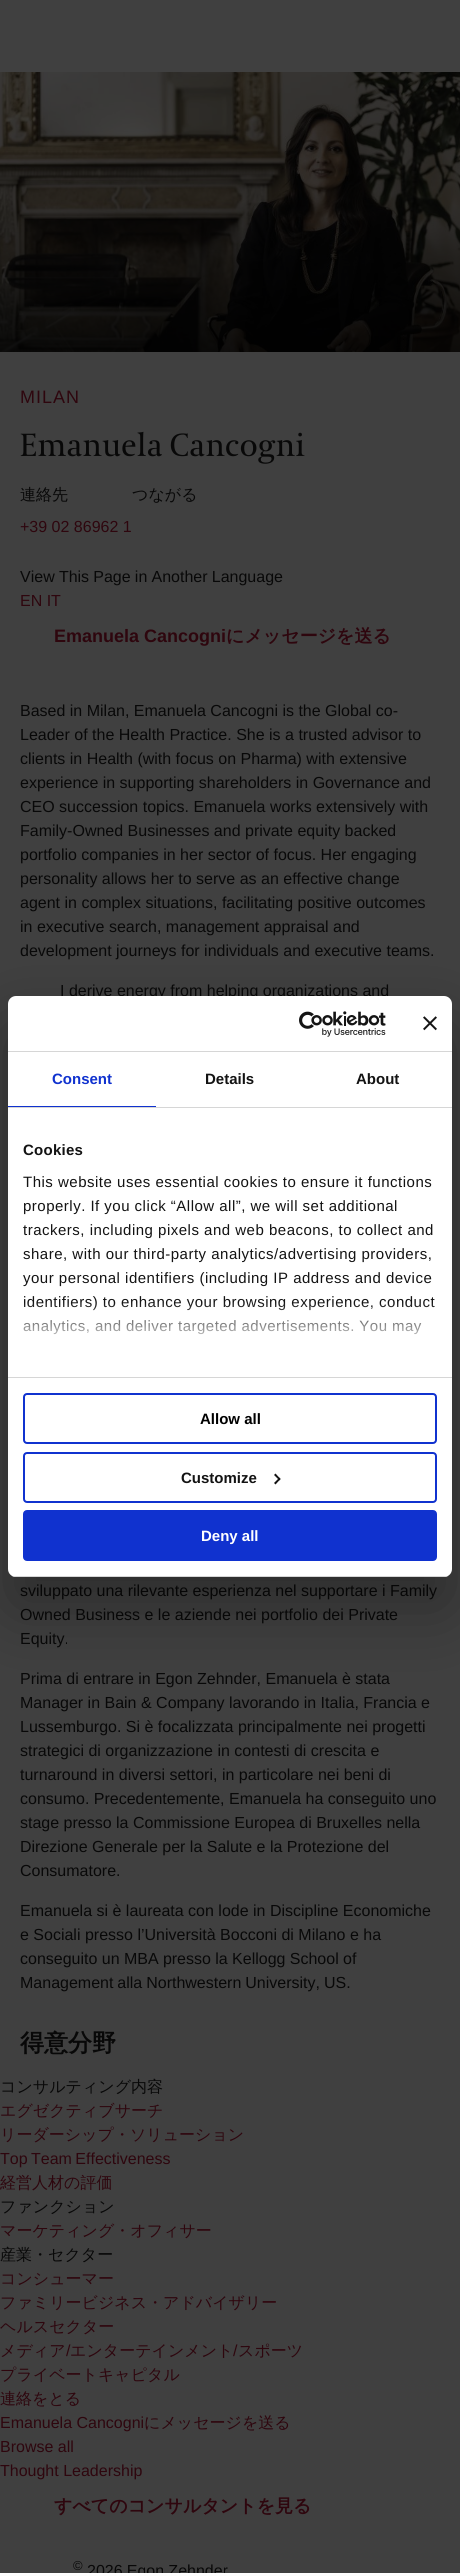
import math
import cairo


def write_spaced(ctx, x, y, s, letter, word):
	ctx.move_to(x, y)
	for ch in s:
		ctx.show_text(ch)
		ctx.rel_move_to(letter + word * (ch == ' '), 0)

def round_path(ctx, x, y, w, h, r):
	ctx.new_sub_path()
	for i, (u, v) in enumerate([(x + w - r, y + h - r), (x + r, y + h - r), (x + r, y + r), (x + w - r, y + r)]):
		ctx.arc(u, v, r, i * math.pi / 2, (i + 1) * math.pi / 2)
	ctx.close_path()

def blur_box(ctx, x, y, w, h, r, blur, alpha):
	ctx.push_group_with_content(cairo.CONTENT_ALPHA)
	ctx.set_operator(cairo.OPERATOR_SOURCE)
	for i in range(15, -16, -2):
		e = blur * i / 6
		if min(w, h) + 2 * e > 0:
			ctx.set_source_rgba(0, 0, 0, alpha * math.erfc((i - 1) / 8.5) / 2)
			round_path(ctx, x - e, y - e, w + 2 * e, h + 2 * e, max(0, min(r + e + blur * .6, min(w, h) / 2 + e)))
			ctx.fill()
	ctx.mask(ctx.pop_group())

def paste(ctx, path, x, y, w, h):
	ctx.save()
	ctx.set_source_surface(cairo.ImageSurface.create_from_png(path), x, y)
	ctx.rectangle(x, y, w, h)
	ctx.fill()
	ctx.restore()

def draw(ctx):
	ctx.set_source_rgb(0.251, 0.251, 0.251)
	ctx.paint()
	paste(ctx, 'media/1.png', 0, 72, 460, 280)
	ctx.select_font_face('Liberation Sans')
	ctx.set_font_size(18)
	ctx.set_source_rgb(0.18, 0.027, 0.055)
	write_spaced(ctx, 20, 403, 'MILAN', 1, 0)
	ctx.select_font_face('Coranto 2')
	ctx.set_font_size(32)
	ctx.set_source_rgb(0.035, 0.035, 0.035)
	ctx.move_to(20, 456)
	ctx.show_text('Emanuela Cancogni')
	ctx.select_font_face('WenQuanYi Zen Hei Medium')
	ctx.set_font_size(16)
	ctx.move_to(20, 500)
	ctx.show_text('連絡先')
	ctx.select_font_face('Liberation Sans')
	ctx.set_source_rgb(0.18, 0.027, 0.055)
	ctx.move_to(20, 532)
	ctx.show_text('+39 02 86962 1')
	ctx.select_font_face('WenQuanYi Zen Hei Medium')
	ctx.set_source_rgb(0.035, 0.035, 0.035)
	ctx.move_to(132, 500)
	ctx.show_text('つながる')
	ctx.select_font_face('Liberation Sans')
	write_spaced(ctx, 20, 582, 'View This Page in Another Language', 0, -0.25)
	ctx.set_source_rgb(0.18, 0.027, 0.055)
	ctx.move_to(20, 606)
	ctx.show_text('EN IT')
	ctx.select_font_face('Liberation Sans', cairo.FONT_SLANT_NORMAL, cairo.FONT_WEIGHT_BOLD)
	ctx.set_font_size(18)
	ctx.move_to(54, 642)
	ctx.show_text('Emanuela Cancogni')
	ctx.select_font_face('WenQuanYi Zen Hei', cairo.FONT_SLANT_NORMAL, cairo.FONT_WEIGHT_BOLD)
	ctx.move_to(226, 642)
	ctx.show_text('にメッセージを送る')
	ctx.select_font_face('Liberation Sans')
	ctx.set_font_size(16)
	ctx.set_source_rgb(0.035, 0.035, 0.035)
	for x, y, s in [
		(20, 716, 'Based in Milan, Emanuela Cancogni is the Global co-'),
		(20, 740, 'Leader of the Health Practice. She is a trusted advisor to'),
		(20, 764, 'clients in Health (with focus on Pharma) with extensive'),
		(20, 788, 'experience in supporting shareholders in Governance and'),
		(20, 812, 'CEO succession topics. Emanuela works extensively with'),
		(20, 836, 'Family-Owned Businesses and private equity backed'),
		(20, 860, 'portfolio companies in her sector of focus. Her engaging'),
		(20, 884, 'personality allows her to serve as an effective change'),
		(20, 908, 'agent in complex situations, facilitating positive outcomes'),
		(20, 932, 'in executive search, management appraisal and'),
		(20, 956, 'development journeys for individuals and executive teams.'),
		(60, 996, 'I derive energy from helping organizations and'),
		(20, 1596, 'sviluppato una rilevante esperienza nel supportare i Family'),
		(20, 1620, 'Owned Business e le aziende nei portfolio dei Private'),
		(20, 1644, 'Equity.'),
		(20, 1684, 'Prima di entrare in Egon Zehnder, Emanuela è stata'),
		(20, 1708, 'Manager in Bain & Company lavorando in Italia, Francia e'),
		(20, 1732, 'Lussemburgo. Si è focalizzata principalmente nei progetti'),
		(20, 1756, 'strategici di organizzazione in contesti di crescita e'),
		(20, 1780, 'turnaround in diversi settori, in particolare nei beni di'),
		(20, 1804, 'consumo. Precedentemente, Emanuela ha conseguito uno'),
		(20, 1828, 'stage presso la Commissione Europea di Bruxelles nella'),
		(20, 1852, 'Direzione Generale per la Salute e la Protezione del'),
		(20, 1876, 'Consumatore.'),
		(20, 1916, 'Emanuela si è laureata con lode in Discipline Economiche'),
		(20, 1940, 'e Sociali presso l’Università Bocconi di Milano e ha'),
	]:
		ctx.move_to(x, y)
		ctx.show_text(s)
	write_spaced(ctx, 20, 1964, 'conseguito un MBA presso la Kellogg School of', 0, -0.1)
	write_spaced(ctx, 20, 1988, 'Management alla Northwestern University, US.', 0, -0.5)
	ctx.select_font_face('WenQuanYi Zen Hei', cairo.FONT_SLANT_NORMAL, cairo.FONT_WEIGHT_BOLD)
	ctx.set_font_size(24)
	ctx.move_to(20, 2051)
	ctx.show_text('得意分野')
	ctx.select_font_face('WenQuanYi Zen Hei Medium')
	ctx.set_font_size(16)
	ctx.move_to(0, 2092)
	ctx.show_text('コンサルティング内容')
	ctx.set_source_rgb(0.18, 0.027, 0.055)
	ctx.move_to(0, 2116)
	ctx.show_text('エグゼクティブサーチ')
	ctx.move_to(0, 2140)
	ctx.show_text('リーダーシップ・ソリューション')
	ctx.select_font_face('Liberation Sans')
	write_spaced(ctx, 0, 2164, 'Top Team Effectiveness', 0, -1)
	ctx.select_font_face('WenQuanYi Zen Hei Medium')
	ctx.move_to(0, 2188)
	ctx.show_text('経営人材の評価')
	ctx.set_source_rgb(0.035, 0.035, 0.035)
	ctx.move_to(0, 2212)
	ctx.show_text('ファンクション')
	ctx.set_source_rgb(0.18, 0.027, 0.055)
	ctx.move_to(0, 2236)
	ctx.show_text('マーケティング・オフィサー')
	ctx.set_source_rgb(0.035, 0.035, 0.035)
	ctx.move_to(0, 2260)
	ctx.show_text('産業・セクター')
	ctx.set_source_rgb(0.18, 0.027, 0.055)
	for x, y, s in [
		(0, 2284, 'コンシューマー'),
		(0, 2308, 'ファミリービジネス・アドバイザリー'),
		(0, 2332, 'ヘルスセクター'),
		(0, 2356, 'メディア'),
	]:
		ctx.move_to(x, y)
		ctx.show_text(s)
	ctx.select_font_face('Liberation Sans')
	ctx.move_to(66, 2356)
	ctx.show_text('/')
	ctx.select_font_face('WenQuanYi Zen Hei Medium')
	ctx.move_to(70, 2356)
	ctx.show_text('エンターテインメント')
	ctx.select_font_face('Liberation Sans')
	ctx.move_to(233, 2356)
	ctx.show_text('/')
	ctx.select_font_face('WenQuanYi Zen Hei Medium')
	for x, y, s in [
		(238, 2356, 'スポーツ'),
		(0, 2380, 'プライベートキャピタル'),
		(0, 2404, '連絡をとる'),
	]:
		ctx.move_to(x, y)
		ctx.show_text(s)
	ctx.select_font_face('Liberation Sans')
	ctx.move_to(0, 2428)
	ctx.show_text('Emanuela Cancogni')
	ctx.select_font_face('WenQuanYi Zen Hei Medium')
	ctx.move_to(144, 2428)
	ctx.show_text('にメッセージを送る')
	ctx.select_font_face('Liberation Sans')
	ctx.move_to(0, 2452)
	ctx.show_text('Browse all')
	ctx.move_to(0, 2476)
	ctx.show_text('Thought Leadership')
	ctx.select_font_face('WenQuanYi Zen Hei', cairo.FONT_SLANT_NORMAL, cairo.FONT_WEIGHT_BOLD)
	ctx.set_font_size(18)
	ctx.move_to(54, 2512)
	ctx.show_text('すべてのコンサルタントを見る')
	ctx.set_source_rgb(0, 0, 0)
	blur_box(ctx, 8, 1028, 444, 581, 8, 34, 0.3)
	ctx.set_source_rgb(1, 1, 1)
	round_path(ctx, 8, 996, 444, 581, 8)
	ctx.fill()
	ctx.set_source_rgb(0.839, 0.839, 0.839)
	ctx.rectangle(8, 1051, 444, 1)
	ctx.fill()
	paste(ctx, 'media/2.png', 299, 1011, 87, 26)
	paste(ctx, 'media/3.png', 423, 1016, 14, 15)
	ctx.rectangle(8, 1107, 444, 1)
	ctx.fill()
	ctx.set_source_rgb(0.063, 0.196, 0.812)
	ctx.rectangle(8, 1106, 148, 1)
	ctx.fill()
	ctx.select_font_face('Liberation Sans', cairo.FONT_SLANT_NORMAL, cairo.FONT_WEIGHT_BOLD)
	ctx.set_font_size(15)
	ctx.move_to(52, 1084)
	ctx.show_text('Consent')
	ctx.set_source_rgb(0.078, 0.078, 0.078)
	ctx.move_to(205, 1084)
	ctx.show_text('Details')
	ctx.move_to(356, 1084)
	ctx.show_text('About')
	ctx.set_source_rgb(0.839, 0.839, 0.839)
	ctx.rectangle(8, 1377, 444, 1)
	ctx.fill()
	ctx.set_source_rgb(0.078, 0.078, 0.078)
	write_spaced(ctx, 23, 1155, 'Cookies', 0.25, 0)
	ctx.select_font_face('Liberation Sans')
	write_spaced(ctx, 23, 1187, 'This website uses essential cookies to ensure it functions', 0.5, 0)
	write_spaced(ctx, 23, 1211, 'properly. If you click “Allow all”, we will set additional', 0.5, -0.1)
	for x, y, s in [
		(23, 1235, 'trackers, including pixels and web beacons, to collect and'),
		(23, 1259, 'share, with our third-party analytics/advertising providers,'),
		(23, 1283, 'your personal identifiers (including IP address and device'),
		(23, 1307, 'identifiers) to enhance your browsing experience, conduct'),
	]:
		write_spaced(ctx, x, y, s, 0.5, 0)
	write_spaced(ctx, 23, 1331, 'analytics, and deliver targeted advertisements. You may', 0.5, -0.25)
	gradient = cairo.LinearGradient(224, 1377, 224, 1302)
	gradient.add_color_stop_rgba(0, 1, 1, 1, 1)
	gradient.add_color_stop_rgba(0.5, 1, 1, 1, 0.8)
	gradient.add_color_stop_rgba(1, 1, 1, 1, 0)
	ctx.set_source(gradient)
	ctx.rectangle(23, 1303, 412, 32)
	ctx.fill()
	ctx.save()
	round_path(ctx, 8, 996, 444, 581, 8)
	ctx.clip()
	ctx.set_source_rgb(0.839, 0.839, 0.839)
	ctx.rectangle(8, 1576, 444, 1)
	ctx.fill()
	ctx.restore()
	round_path(ctx, 24, 1394, 412, 49, 3)
	ctx.set_source_rgb(0.063, 0.196, 0.812)
	ctx.stroke()
	ctx.select_font_face('Liberation Sans', cairo.FONT_SLANT_NORMAL, cairo.FONT_WEIGHT_BOLD)
	ctx.set_source_rgb(0, 0, 0)
	ctx.move_to(200, 1424)
	ctx.show_text('Allow all')
	round_path(ctx, 24, 1453, 412, 49, 3)
	ctx.set_source_rgb(0.063, 0.196, 0.812)
	ctx.stroke()
	ctx.set_source_rgb(0.078, 0.078, 0.078)
	ctx.move_to(181, 1483)
	ctx.show_text('Customize')
	ctx.new_path()
	ctx.move_to(275.5, 1473.5)
	ctx.line_to(280.5, 1479)
	ctx.line_to(279.5, 1480.5)
	ctx.line_to(274, 1475)
	ctx.close_path()
	ctx.fill()
	ctx.new_path()
	ctx.move_to(279.5, 1477.5)
	ctx.line_to(280.5, 1479)
	ctx.line_to(275.5, 1484.5)
	ctx.line_to(274, 1483)
	ctx.close_path()
	ctx.fill()
	ctx.set_source_rgb(0.063, 0.196, 0.812)
	round_path(ctx, 24, 1511, 412, 49, 3)
	ctx.fill_preserve()
	ctx.stroke()
	ctx.set_source_rgb(1, 1, 1)
	ctx.move_to(201, 1541)
	ctx.show_text('Deny all')
	ctx.select_font_face('Liberation Sans')
	ctx.set_font_size(13)
	ctx.set_source_rgb(0.035, 0.035, 0.035)
	ctx.move_to(73, 2570)
	ctx.show_text('©')
	ctx.set_font_size(16)
	write_spaced(ctx, 87, 2576, '2026 Egon Zehnder', 0, -0.25)


surface = cairo.ImageSurface(cairo.FORMAT_RGB24, 460, 2573)
ctx = cairo.Context(surface)
options = cairo.FontOptions()
options.set_hint_metrics(cairo.HINT_METRICS_OFF)
options.set_hint_style(cairo.HINT_STYLE_NONE)
ctx.set_font_options(options)
ctx.set_miter_limit(4)
draw(ctx)
surface.write_to_png('image.png')
